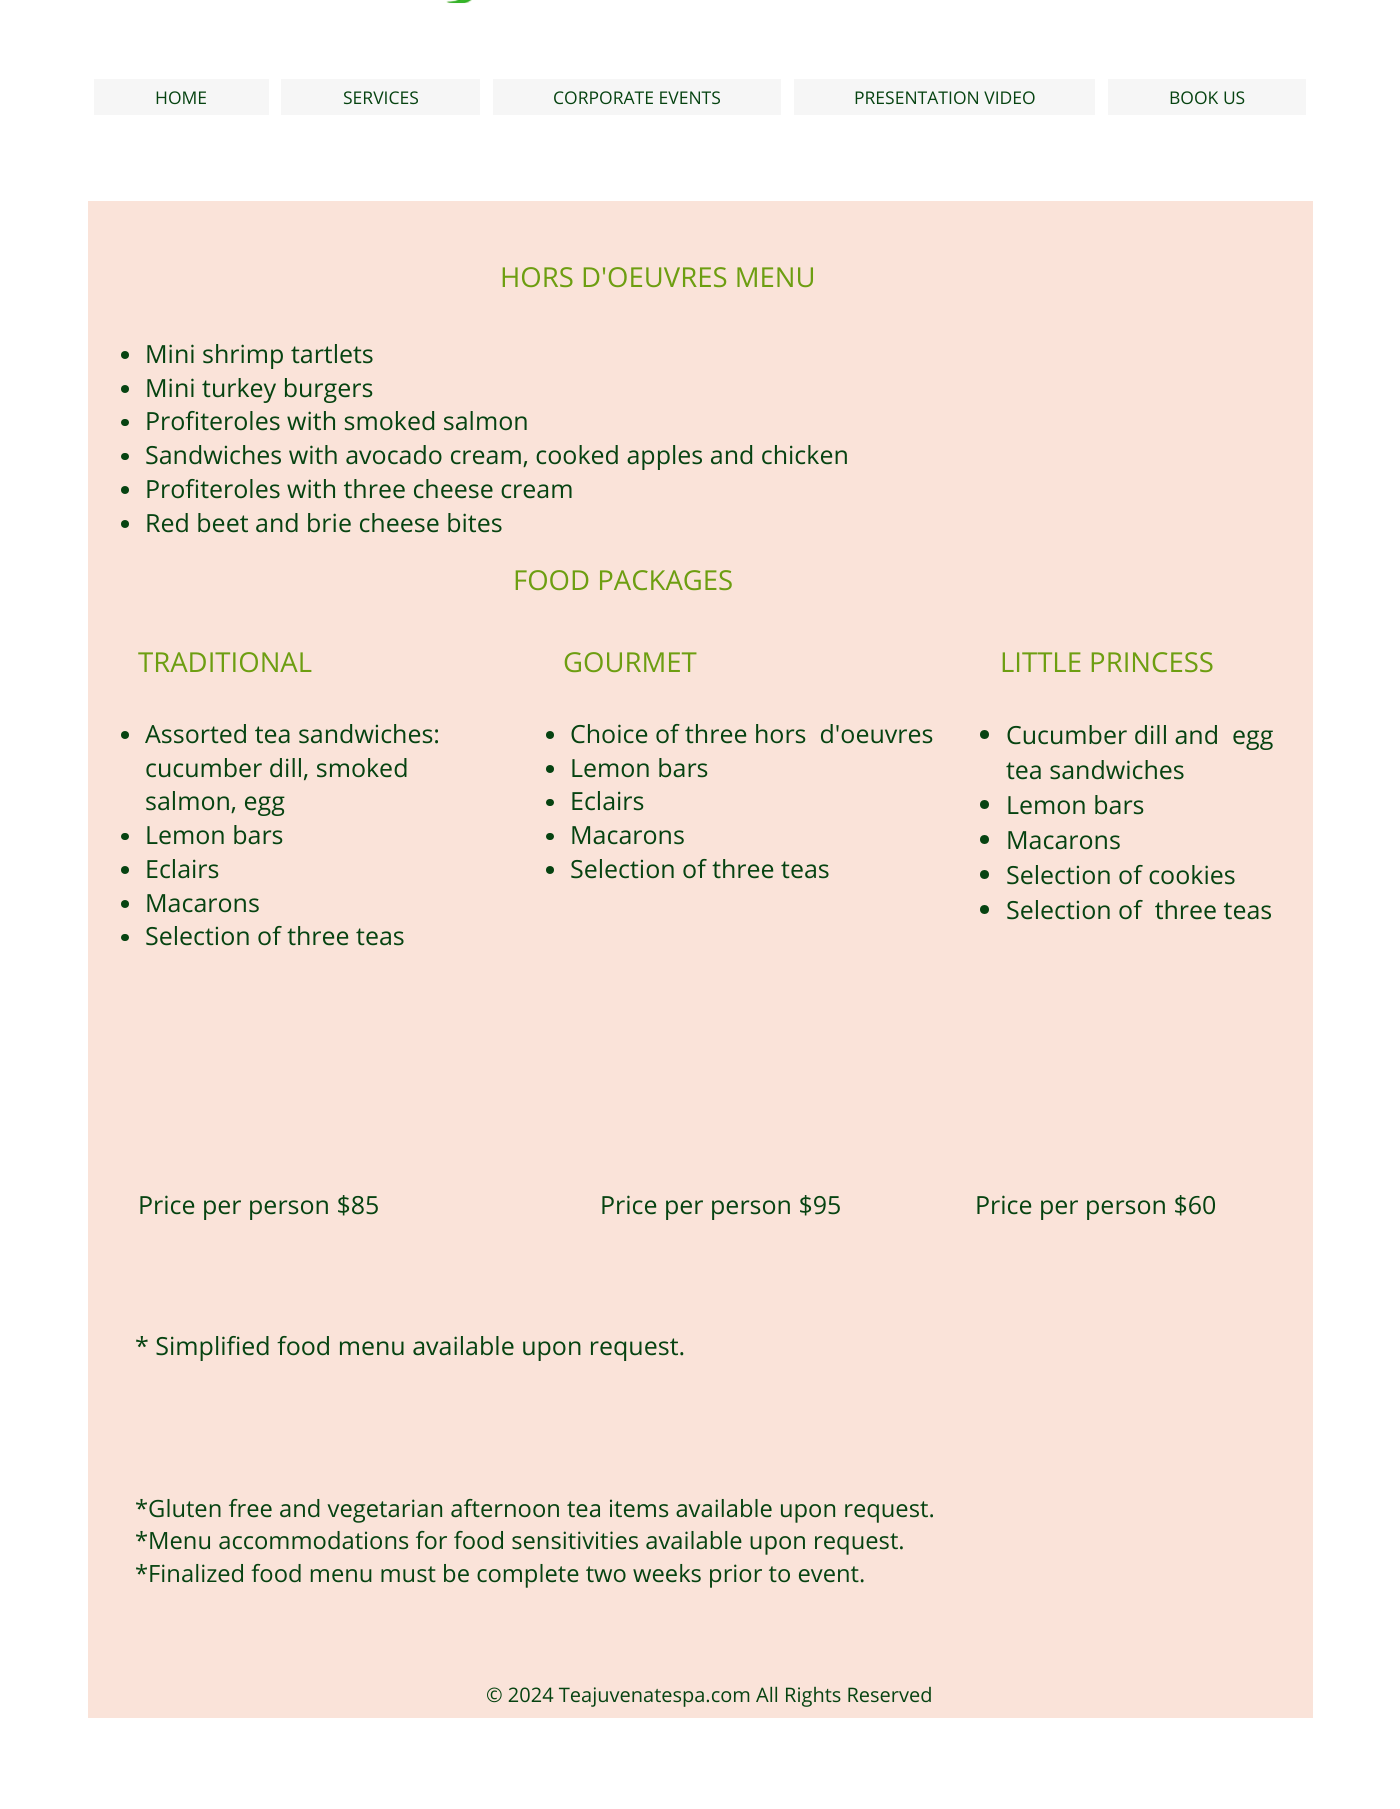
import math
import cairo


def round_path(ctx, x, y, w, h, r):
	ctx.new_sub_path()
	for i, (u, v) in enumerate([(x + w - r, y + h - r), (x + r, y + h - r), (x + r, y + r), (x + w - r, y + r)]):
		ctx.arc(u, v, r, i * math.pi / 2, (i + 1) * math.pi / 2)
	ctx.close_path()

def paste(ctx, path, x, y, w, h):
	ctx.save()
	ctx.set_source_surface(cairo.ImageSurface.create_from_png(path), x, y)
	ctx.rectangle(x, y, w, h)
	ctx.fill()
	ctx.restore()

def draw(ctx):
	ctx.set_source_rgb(1, 1, 1)
	ctx.paint()
	paste(ctx, 'media/1.png', 446, 0, 26, 4)
	ctx.set_source_rgb(0.961, 0.961, 0.961)
	ctx.rectangle(94, 79, 175, 36)
	ctx.fill()
	ctx.select_font_face('Open Sans')
	ctx.set_font_size(17.5)
	ctx.set_source_rgb(0.027, 0.263, 0.067)
	ctx.move_to(155, 104)
	ctx.show_text('HOME')
	ctx.set_source_rgb(0.961, 0.961, 0.961)
	ctx.rectangle(281, 79, 199, 36)
	ctx.fill()
	ctx.set_source_rgb(0.027, 0.263, 0.067)
	ctx.move_to(343, 104)
	ctx.show_text('SERVICES')
	ctx.set_source_rgb(0.961, 0.961, 0.961)
	ctx.rectangle(493, 79, 288, 36)
	ctx.fill()
	ctx.set_source_rgb(0.027, 0.263, 0.067)
	ctx.move_to(553, 104)
	ctx.show_text('CORPORATE EVENTS')
	ctx.set_source_rgb(0.961, 0.961, 0.961)
	ctx.rectangle(794, 79, 301, 36)
	ctx.fill()
	ctx.set_source_rgb(0.027, 0.263, 0.067)
	ctx.move_to(854, 104)
	ctx.show_text('PRESENTATION VIDEO')
	ctx.set_source_rgb(0.961, 0.961, 0.961)
	ctx.rectangle(1108, 79, 198, 36)
	ctx.fill()
	ctx.set_source_rgb(0.027, 0.263, 0.067)
	ctx.move_to(1169, 104)
	ctx.show_text('BOOK US')
	ctx.set_source_rgb(0.98, 0.89, 0.851)
	ctx.rectangle(88, 201, 1225, 1517)
	ctx.fill()
	ctx.set_font_size(27.5)
	ctx.set_source_rgb(0.427, 0.62, 0.067)
	ctx.move_to(500, 287)
	ctx.show_text('HORS D\'OEUVRES MENU')
	ctx.set_source_rgb(0.027, 0.263, 0.067)
	ctx.new_path()
	ctx.arc(125, 355, 4, 0, 2 * math.pi)
	ctx.fill()
	ctx.set_font_size(25)
	ctx.move_to(145, 363)
	ctx.show_text('Mini shrimp tartlets')
	ctx.new_path()
	ctx.arc(125, 389, 4, 0, 2 * math.pi)
	ctx.fill()
	ctx.move_to(145, 397)
	ctx.show_text('Mini turkey burgers')
	round_path(ctx, 121, 419, 8, 7, 3.5)
	ctx.fill()
	ctx.move_to(145, 430)
	ctx.show_text('Profiteroles with smoked salmon')
	round_path(ctx, 121, 453, 8, 7, 3.5)
	ctx.fill()
	ctx.move_to(145, 464)
	ctx.show_text('Sandwiches with avocado cream, cooked apples and chicken')
	ctx.new_path()
	ctx.arc(125, 490, 4, 0, 2 * math.pi)
	ctx.fill()
	ctx.move_to(145, 498)
	ctx.show_text('Profiteroles with three cheese cream')
	ctx.new_path()
	ctx.arc(125, 524, 4, 0, 2 * math.pi)
	ctx.fill()
	ctx.move_to(145, 532)
	ctx.show_text('Red beet and brie cheese bites')
	ctx.set_font_size(27.5)
	ctx.set_source_rgb(0.427, 0.62, 0.067)
	for x, y, s in [
		(513, 590, 'FOOD PACKAGES'),
		(138, 672, 'TRADITIONAL'),
		(563, 672, 'GOURMET'),
		(1000, 672, 'LITTLE PRINCESS'),
	]:
		ctx.move_to(x, y)
		ctx.show_text(s)
	ctx.set_source_rgb(0.027, 0.263, 0.067)
	ctx.new_path()
	ctx.arc(125, 735, 4, 0, 2 * math.pi)
	ctx.fill()
	ctx.set_font_size(25)
	for x, y, s in [
		(145, 743, 'Assorted tea sandwiches:'),
		(145, 777, 'cucumber dill, smoked'),
		(145, 810, 'salmon, egg'),
	]:
		ctx.move_to(x, y)
		ctx.show_text(s)
	round_path(ctx, 121, 833, 8, 7, 3.5)
	ctx.fill()
	ctx.move_to(145, 844)
	ctx.show_text('Lemon bars')
	ctx.new_path()
	ctx.arc(125, 870, 4, 0, 2 * math.pi)
	ctx.fill()
	ctx.move_to(145, 878)
	ctx.show_text('Eclairs')
	ctx.new_path()
	ctx.arc(125, 904, 4, 0, 2 * math.pi)
	ctx.fill()
	ctx.move_to(145, 912)
	ctx.show_text('Macarons')
	round_path(ctx, 121, 934, 8, 7, 3.5)
	ctx.fill()
	ctx.move_to(145, 945)
	ctx.show_text('Selection of three teas')
	ctx.new_path()
	ctx.arc(550, 735, 4, 0, 2 * math.pi)
	ctx.fill()
	ctx.move_to(570, 743)
	ctx.show_text('Choice of three hors  d\'oeuvres')
	ctx.new_path()
	ctx.arc(550, 769, 4, 0, 2 * math.pi)
	ctx.fill()
	ctx.move_to(570, 777)
	ctx.show_text('Lemon bars')
	round_path(ctx, 546, 799, 8, 7, 3.5)
	ctx.fill()
	ctx.move_to(570, 810)
	ctx.show_text('Eclairs')
	round_path(ctx, 546, 833, 8, 7, 3.5)
	ctx.fill()
	ctx.move_to(570, 844)
	ctx.show_text('Macarons')
	ctx.new_path()
	ctx.arc(550, 870, 4, 0, 2 * math.pi)
	ctx.fill()
	ctx.move_to(570, 878)
	ctx.show_text('Selection of three teas')
	ctx.new_path()
	ctx.arc(984.5, 734.5, 4.5, 0, 2 * math.pi)
	ctx.fill()
	ctx.move_to(1006, 744)
	ctx.show_text('Cucumber dill and  egg')
	ctx.move_to(1006, 779)
	ctx.show_text('tea sandwiches')
	ctx.new_path()
	ctx.arc(984.5, 804.5, 4.5, 0, 2 * math.pi)
	ctx.fill()
	ctx.move_to(1006, 814)
	ctx.show_text('Lemon bars')
	ctx.new_path()
	ctx.arc(984.5, 839.5, 4.5, 0, 2 * math.pi)
	ctx.fill()
	ctx.move_to(1006, 849)
	ctx.show_text('Macarons')
	ctx.new_path()
	ctx.arc(984.5, 874.5, 4.5, 0, 2 * math.pi)
	ctx.fill()
	ctx.move_to(1006, 884)
	ctx.show_text('Selection of cookies')
	ctx.new_path()
	ctx.arc(984.5, 909.5, 4.5, 0, 2 * math.pi)
	ctx.fill()
	for x, y, s in [
		(1006, 919, 'Selection of  three teas'),
		(138, 1214, 'Price per person $85'),
		(600, 1214, 'Price per person $95'),
		(975, 1214, 'Price per person $60'),
		(135, 1355, '* Simplified food menu available upon request.'),
	]:
		ctx.move_to(x, y)
		ctx.show_text(s)
	ctx.set_font_size(23.75)
	for x, y, s in [
		(135, 1517, '*Gluten free and vegetarian afternoon tea items available upon request.'),
		(135, 1549, '*Menu accommodations for food sensitivities available upon request.'),
		(135, 1582, '*Finalized food menu must be complete two weeks prior to event.'),
	]:
		ctx.move_to(x, y)
		ctx.show_text(s)
	ctx.set_font_size(20)
	ctx.move_to(486, 1702)
	ctx.show_text('© 2024 Teajuvenatespa.com All Rights Reserved')


surface = cairo.ImageSurface(cairo.FORMAT_RGB24, 1400, 1809)
ctx = cairo.Context(surface)
options = cairo.FontOptions()
options.set_hint_metrics(cairo.HINT_METRICS_OFF)
options.set_hint_style(cairo.HINT_STYLE_NONE)
ctx.set_font_options(options)
ctx.set_miter_limit(4)
draw(ctx)
surface.write_to_png('image.png')
